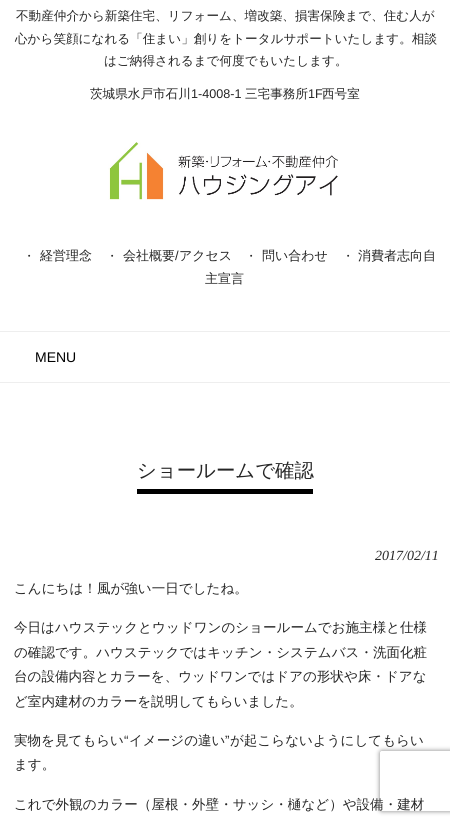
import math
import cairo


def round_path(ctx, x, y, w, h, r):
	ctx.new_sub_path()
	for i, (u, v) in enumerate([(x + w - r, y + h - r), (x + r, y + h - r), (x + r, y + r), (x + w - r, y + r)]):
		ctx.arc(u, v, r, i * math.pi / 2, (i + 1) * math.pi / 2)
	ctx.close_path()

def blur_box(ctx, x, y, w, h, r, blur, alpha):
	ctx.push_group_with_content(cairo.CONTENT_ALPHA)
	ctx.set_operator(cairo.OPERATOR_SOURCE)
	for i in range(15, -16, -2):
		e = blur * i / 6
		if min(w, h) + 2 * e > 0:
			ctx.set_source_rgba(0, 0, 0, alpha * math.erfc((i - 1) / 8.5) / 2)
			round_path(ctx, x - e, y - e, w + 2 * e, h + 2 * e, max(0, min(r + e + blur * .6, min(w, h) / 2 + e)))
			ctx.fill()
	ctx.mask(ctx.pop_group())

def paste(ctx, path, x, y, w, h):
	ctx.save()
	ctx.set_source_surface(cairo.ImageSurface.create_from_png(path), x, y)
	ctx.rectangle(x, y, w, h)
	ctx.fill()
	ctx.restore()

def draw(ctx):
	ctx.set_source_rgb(1, 1, 1)
	ctx.paint()
	ctx.select_font_face('WenQuanYi Zen Hei Medium')
	ctx.set_font_size(12.6)
	ctx.set_source_rgb(0.145, 0.145, 0.145)
	for x, y, s in [
		(16, 20, '不動産仲介から新築住宅、リフォーム、増改築、損害保険まで、住む人が'),
		(15, 43, '心から笑顔になれる「住まい」創りをトータルサポートいたします。相談'),
		(104, 65, 'はご納得されるまで何度でもいたします。'),
		(90, 98, '茨城県水戸市石川'),
	]:
		ctx.move_to(x, y)
		ctx.show_text(s)
	ctx.select_font_face('Liberation Sans')
	ctx.move_to(191, 98)
	ctx.show_text('1-4008-1')
	ctx.select_font_face('WenQuanYi Zen Hei Medium')
	ctx.move_to(245, 98)
	ctx.show_text('三宅事務所')
	ctx.select_font_face('Liberation Sans')
	ctx.move_to(308, 98)
	ctx.show_text('1F')
	ctx.select_font_face('WenQuanYi Zen Hei Medium')
	ctx.move_to(322, 98)
	ctx.show_text('西号室')
	paste(ctx, 'media/1.png', 108, 142, 230, 58)
	ctx.set_font_size(13)
	for x, y, s in [
		(40, 260, '経営理念'),
		(123, 260, '会社概要 アクセス'),
		(262, 260, '問い合わせ'),
		(358, 260, '消費者志向自'),
	]:
		ctx.move_to(x, y)
		ctx.show_text(s)
	ctx.set_font_size(12)
	ctx.move_to(23, 260)
	ctx.show_text('・')
	ctx.move_to(106, 260)
	ctx.show_text('・')
	ctx.select_font_face('Liberation Sans')
	ctx.set_font_size(13)
	ctx.move_to(175, 260)
	ctx.show_text('/')
	ctx.select_font_face('WenQuanYi Zen Hei Medium')
	ctx.set_font_size(12)
	ctx.move_to(245, 260)
	ctx.show_text('・')
	ctx.move_to(342, 260)
	ctx.show_text('・')
	ctx.set_font_size(13)
	ctx.move_to(205, 283)
	ctx.show_text('主宣言')
	ctx.set_source_rgb(0.933, 0.933, 0.933)
	ctx.rectangle(0, 331, 450, 1)
	ctx.fill()
	ctx.rectangle(0, 382, 450, 1)
	ctx.fill()
	ctx.select_font_face('Liberation Sans')
	ctx.set_font_size(14)
	ctx.set_source_rgb(0, 0, 0)
	ctx.move_to(35, 362)
	ctx.show_text('MENU')
	ctx.select_font_face('WenQuanYi Zen Hei Medium')
	ctx.set_font_size(19.4)
	ctx.set_source_rgb(0.145, 0.145, 0.145)
	ctx.move_to(137, 477)
	ctx.show_text('ショールームで確認')
	ctx.set_source_rgb(0, 0, 0)
	ctx.rectangle(137, 489, 176, 5)
	ctx.fill()
	ctx.select_font_face('Liberation Serif', cairo.FONT_SLANT_ITALIC)
	ctx.set_font_size(14)
	ctx.set_source_rgb(0.145, 0.145, 0.145)
	ctx.move_to(375, 560)
	ctx.show_text('2017/02/11')
	ctx.select_font_face('WenQuanYi Zen Hei Medium')
	ctx.set_font_size(13.55)
	for x, y, s in [
		(14, 593, 'こんにちは！風が強い一日でしたね。'),
		(14, 632, '今日はハウステックとウッドワンのショールームでお施主様と仕様'),
		(14, 657, 'の確認です。ハウステックではキッチン・システムバス・洗面化粧'),
		(14, 681, '台の設備内容とカラーを、ウッドワンではドアの形状や床・ドアな'),
		(14, 706, 'ど室内建材のカラーを説明してもらいました。'),
		(14, 745, '実物を見てもらい'),
	]:
		ctx.move_to(x, y)
		ctx.show_text(s)
	ctx.select_font_face('Liberation Sans')
	ctx.move_to(124, 745)
	ctx.show_text('“')
	ctx.select_font_face('WenQuanYi Zen Hei Medium')
	ctx.move_to(129, 745)
	ctx.show_text('イメージの違い')
	ctx.select_font_face('Liberation Sans')
	ctx.move_to(225, 745)
	ctx.show_text('”')
	ctx.select_font_face('WenQuanYi Zen Hei Medium')
	for x, y, s in [
		(230, 745, 'が起こらないようにしてもらい'),
		(14, 769, 'ます。'),
		(14, 809, 'これで外観のカラー（屋根・外壁・サッシ・樋など）や設備・建材'),
	]:
		ctx.move_to(x, y)
		ctx.show_text(s)
	ctx.save()
	ctx.set_fill_rule(cairo.FILL_RULE_EVEN_ODD)
	ctx.new_path()
	ctx.move_to(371, 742)
	ctx.line_to(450, 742)
	ctx.line_to(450, 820)
	ctx.line_to(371, 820)
	ctx.close_path()
	ctx.move_to(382, 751)
	ctx.line_to(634, 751)
	ctx.curve_to(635, 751, 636, 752, 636, 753)
	ctx.line_to(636, 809)
	ctx.curve_to(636, 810, 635, 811, 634, 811)
	ctx.line_to(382, 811)
	ctx.curve_to(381, 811, 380, 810, 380, 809)
	ctx.line_to(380, 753)
	ctx.curve_to(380, 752, 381, 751, 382, 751)
	ctx.close_path()
	ctx.clip()
	ctx.set_source_rgb(0.502, 0.502, 0.502)
	blur_box(ctx, 380, 751, 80, 60, 2, 2.5, 1)
	ctx.restore()


surface = cairo.ImageSurface(cairo.FORMAT_RGB24, 450, 825)
ctx = cairo.Context(surface)
options = cairo.FontOptions()
options.set_hint_metrics(cairo.HINT_METRICS_OFF)
options.set_hint_style(cairo.HINT_STYLE_NONE)
ctx.set_font_options(options)
ctx.set_miter_limit(4)
draw(ctx)
surface.write_to_png('image.png')
